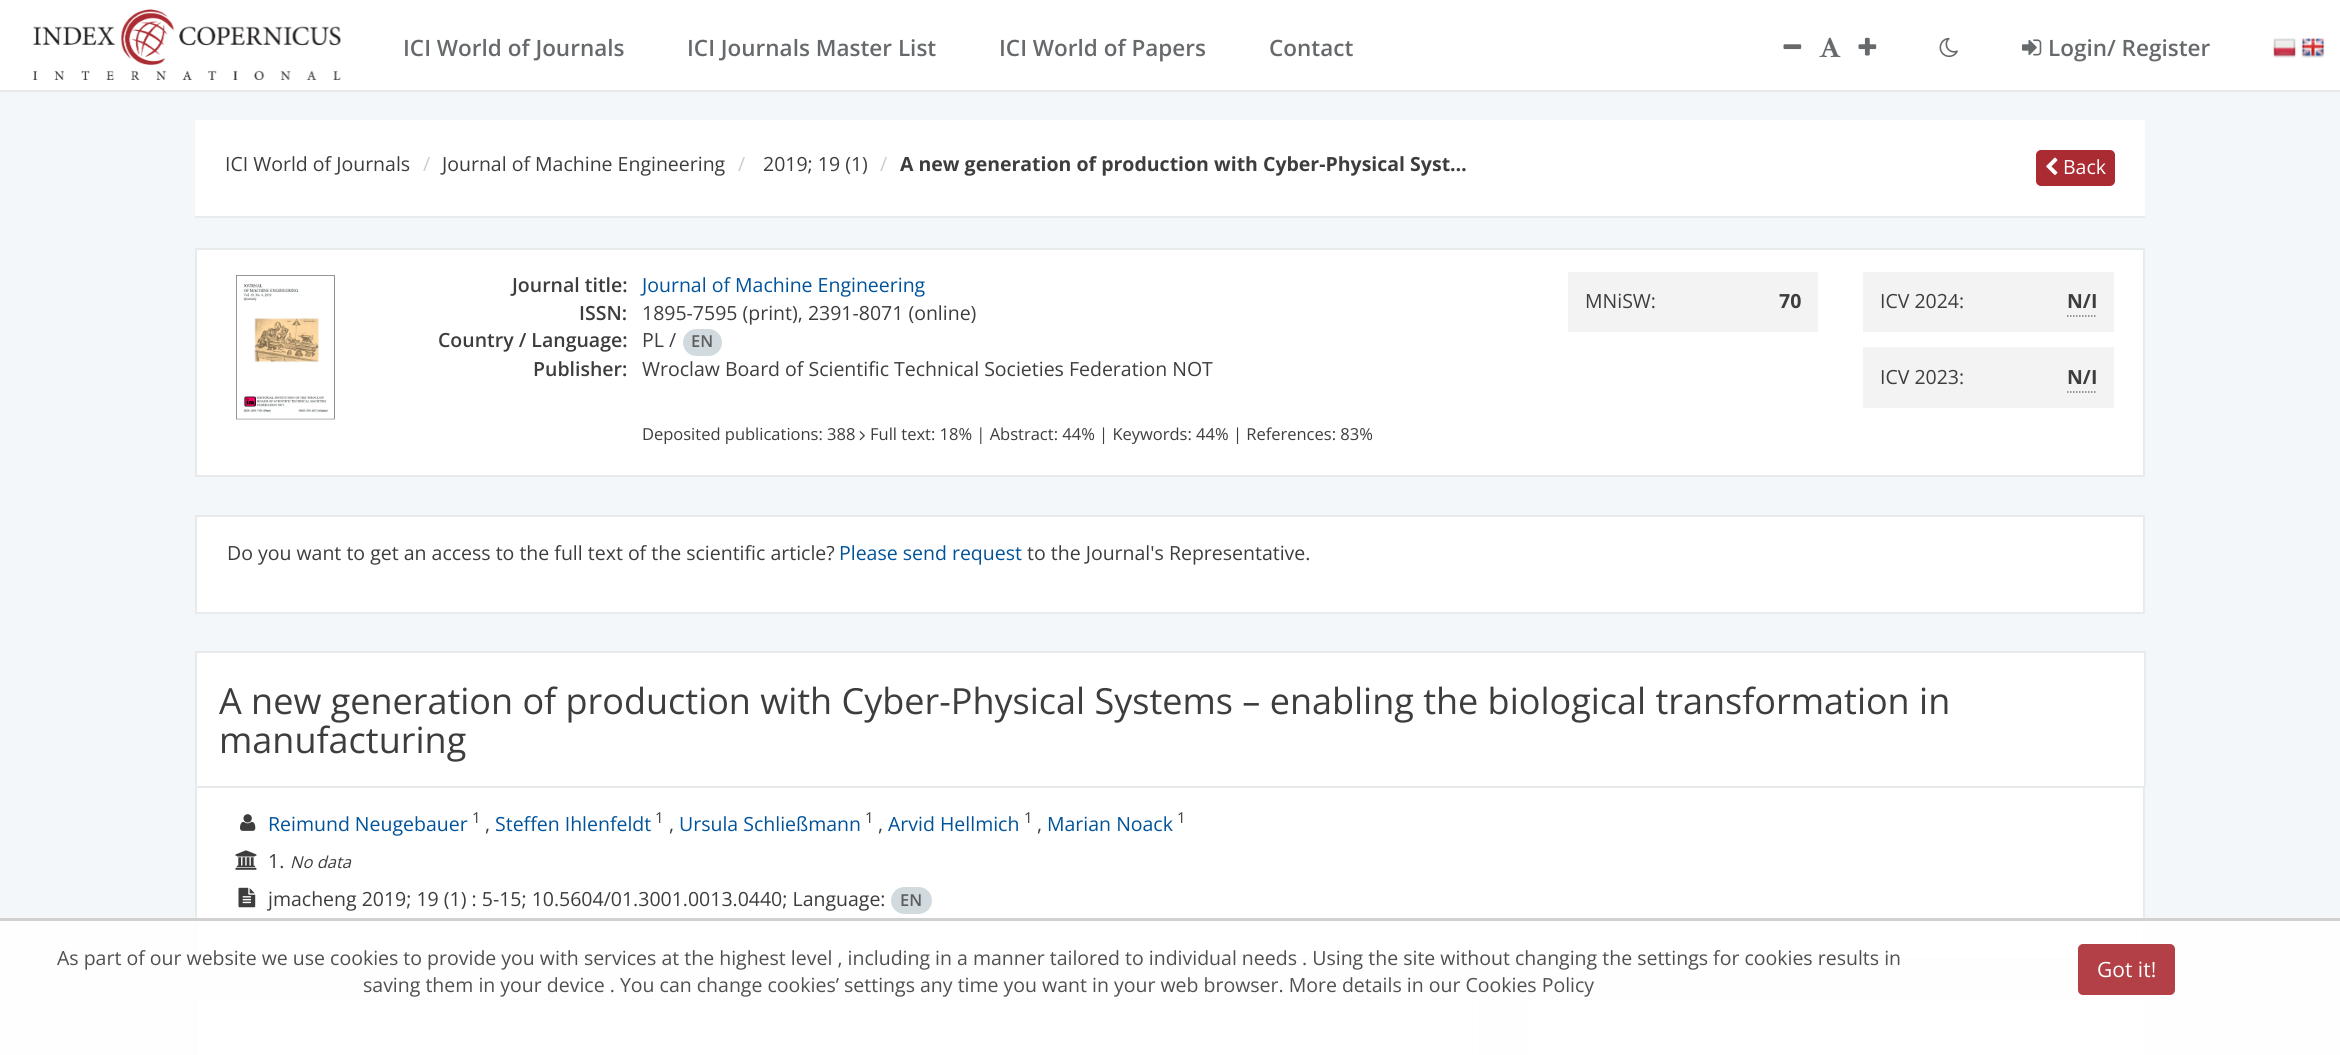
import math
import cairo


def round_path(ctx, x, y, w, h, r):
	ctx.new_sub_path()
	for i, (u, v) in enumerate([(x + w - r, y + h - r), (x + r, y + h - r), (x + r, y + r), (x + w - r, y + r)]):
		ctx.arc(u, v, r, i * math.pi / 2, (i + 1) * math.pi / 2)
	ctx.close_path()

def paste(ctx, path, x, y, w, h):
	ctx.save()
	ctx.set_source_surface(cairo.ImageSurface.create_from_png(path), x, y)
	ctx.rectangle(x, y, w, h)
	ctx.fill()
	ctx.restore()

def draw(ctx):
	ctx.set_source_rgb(0.957, 0.965, 0.98)
	ctx.paint()
	ctx.set_source_rgb(1, 1, 1)
	ctx.rectangle(0, 0, 2340, 90)
	ctx.fill()
	ctx.set_source_rgb(0.906, 0.918, 0.925)
	ctx.rectangle(0, 90, 2340, 2)
	ctx.fill()
	paste(ctx, 'media/1.png', 33, 9, 308, 72)
	ctx.select_font_face('Open Sans SemiBold')
	ctx.set_font_size(22.5)
	ctx.set_source_rgb(0.404, 0.416, 0.424)
	for x, y, s in [
		(403, 56, 'ICI World of Journals'),
		(687, 56, 'ICI Journals Master List'),
		(999, 56, 'ICI World of Papers'),
		(1269, 56, 'Contact'),
	]:
		ctx.move_to(x, y)
		ctx.show_text(s)
	paste(ctx, 'media/2.png', 1783, 44, 19, 6)
	paste(ctx, 'media/3.png', 1819, 37, 22, 21)
	paste(ctx, 'media/4.png', 1858, 37, 19, 19)
	paste(ctx, 'media/5.png', 1939, 37, 19, 21)
	paste(ctx, 'media/6.png', 2022, 39, 20, 17)
	ctx.move_to(2048, 56)
	ctx.show_text('Login/ Register')
	paste(ctx, 'media/7.png', 2273, 38, 23, 20)
	paste(ctx, 'media/8.png', 2301, 38, 24, 20)
	ctx.set_source_rgb(1, 1, 1)
	ctx.rectangle(195, 120, 1950, 96)
	ctx.fill()
	ctx.set_source_rgb(0.906, 0.918, 0.925)
	ctx.rectangle(195, 216, 1950, 2)
	ctx.fill()
	ctx.select_font_face('Open Sans')
	ctx.set_font_size(19.5)
	ctx.set_source_rgb(0.239, 0.239, 0.239)
	ctx.move_to(225, 171)
	ctx.show_text('ICI World of Journals')
	ctx.set_source_rgb(0.8, 0.8, 0.8)
	ctx.move_to(423, 171)
	ctx.show_text('/')
	ctx.set_source_rgb(0.239, 0.239, 0.239)
	ctx.move_to(442, 171)
	ctx.show_text('Journal of Machine Engineering')
	ctx.set_source_rgb(0.8, 0.8, 0.8)
	ctx.move_to(738, 171)
	ctx.show_text('/')
	ctx.set_source_rgb(0.239, 0.239, 0.239)
	ctx.move_to(763, 171)
	ctx.show_text('2019; 19 (1)')
	ctx.set_source_rgb(0.8, 0.8, 0.8)
	ctx.move_to(880, 171)
	ctx.show_text('/')
	ctx.select_font_face('Open Sans', cairo.FONT_SLANT_NORMAL, cairo.FONT_WEIGHT_BOLD)
	ctx.set_source_rgb(0.239, 0.239, 0.239)
	ctx.move_to(900, 171)
	ctx.show_text('A new generation of production with Cyber-Physical Syst…')
	ctx.set_source_rgb(0.667, 0.169, 0.192)
	round_path(ctx, 2037, 151, 77, 34, 4)
	ctx.fill_preserve()
	ctx.stroke()
	paste(ctx, 'media/9.png', 2046, 157, 12, 18)
	ctx.select_font_face('Open Sans')
	ctx.set_source_rgb(1, 1, 1)
	ctx.move_to(2063, 174)
	ctx.show_text('Back')
	ctx.rectangle(196, 249, 1948, 227)
	ctx.fill_preserve()
	ctx.set_source_rgb(0.906, 0.918, 0.925)
	ctx.stroke()
	paste(ctx, 'media/10.png', 236, 275, 99, 145)
	ctx.select_font_face('Open Sans SemiBold')
	ctx.set_source_rgb(0.239, 0.239, 0.239)
	ctx.move_to(512, 292)
	ctx.show_text('Journal title:')
	ctx.select_font_face('Open Sans')
	ctx.set_source_rgb(0, 0.325, 0.608)
	ctx.move_to(642, 292)
	ctx.show_text('Journal of Machine Engineering')
	ctx.select_font_face('Open Sans SemiBold')
	ctx.set_source_rgb(0.239, 0.239, 0.239)
	ctx.move_to(579, 320)
	ctx.show_text('ISSN:')
	ctx.select_font_face('Open Sans')
	ctx.move_to(642, 320)
	ctx.show_text('1895-7595 (print), 2391-8071 (online)')
	ctx.select_font_face('Open Sans SemiBold')
	ctx.move_to(438, 347)
	ctx.show_text('Country / Language:')
	ctx.select_font_face('Open Sans')
	ctx.move_to(642, 347)
	ctx.show_text('PL /')
	ctx.set_source_rgb(0.82, 0.855, 0.871)
	round_path(ctx, 683, 329, 39, 27, 13.5)
	ctx.fill()
	ctx.select_font_face('Open Sans SemiBold')
	ctx.set_font_size(16.5)
	ctx.set_source_rgb(0.369, 0.369, 0.369)
	ctx.move_to(691, 347)
	ctx.show_text('EN')
	ctx.set_font_size(19.5)
	ctx.set_source_rgb(0.239, 0.239, 0.239)
	ctx.move_to(533, 376)
	ctx.show_text('Publisher:')
	ctx.select_font_face('Open Sans')
	ctx.move_to(642, 376)
	ctx.show_text('Wroclaw Board of Scientific Technical Societies Federation NOT')
	ctx.set_source_rgb(0.953, 0.953, 0.957)
	ctx.rectangle(1568, 272, 250, 60)
	ctx.fill()
	ctx.set_source_rgb(0.239, 0.239, 0.239)
	ctx.move_to(1585, 308)
	ctx.show_text('MNiSW:')
	ctx.select_font_face('Open Sans', cairo.FONT_SLANT_NORMAL, cairo.FONT_WEIGHT_BOLD)
	ctx.move_to(1779, 308)
	ctx.show_text('70')
	ctx.set_source_rgb(0.953, 0.953, 0.957)
	ctx.rectangle(1863, 272, 251, 60)
	ctx.fill()
	ctx.select_font_face('Open Sans')
	ctx.set_source_rgb(0.239, 0.239, 0.239)
	ctx.move_to(1880, 308)
	ctx.show_text('ICV 2024:')
	ctx.new_path()
	ctx.move_to(2067, 316)
	ctx.line_to(2097, 316)
	ctx.set_source_rgb(0.467, 0.467, 0.467)
	ctx.set_line_width(1.5)
	ctx.set_dash([1.5, 1.5])
	ctx.stroke()
	ctx.select_font_face('Open Sans', cairo.FONT_SLANT_NORMAL, cairo.FONT_WEIGHT_BOLD)
	ctx.set_source_rgb(0.239, 0.239, 0.239)
	ctx.move_to(2067, 308)
	ctx.show_text('N/I')
	ctx.set_source_rgb(0.953, 0.953, 0.957)
	ctx.rectangle(1863, 347, 251, 61)
	ctx.fill()
	ctx.select_font_face('Open Sans')
	ctx.set_source_rgb(0.239, 0.239, 0.239)
	ctx.move_to(1880, 384)
	ctx.show_text('ICV 2023:')
	ctx.new_path()
	ctx.move_to(2067, 392)
	ctx.line_to(2097, 392)
	ctx.set_source_rgb(0.467, 0.467, 0.467)
	ctx.stroke()
	ctx.select_font_face('Open Sans', cairo.FONT_SLANT_NORMAL, cairo.FONT_WEIGHT_BOLD)
	ctx.set_source_rgb(0.239, 0.239, 0.239)
	ctx.move_to(2067, 384)
	ctx.show_text('N/I')
	ctx.select_font_face('Open Sans')
	ctx.set_font_size(16.5)
	ctx.move_to(642, 440)
	ctx.show_text('Deposited publications: 388')
	paste(ctx, 'media/11.png', 859, 431, 6, 10)
	ctx.move_to(870, 440)
	ctx.show_text('Full text: 18% | Abstract: 44% | Keywords: 44% | References: 83%')
	ctx.set_source_rgb(1, 1, 1)
	ctx.rectangle(196, 516, 1948, 97)
	ctx.fill_preserve()
	ctx.set_source_rgb(0.906, 0.918, 0.925)
	ctx.set_line_width(2)
	ctx.set_dash([])
	ctx.stroke()
	ctx.set_font_size(19.5)
	ctx.set_source_rgb(0.239, 0.239, 0.239)
	ctx.move_to(227, 560)
	ctx.show_text('Do you want to get an access to the full text of the scientific article?')
	ctx.set_source_rgb(0, 0.325, 0.608)
	ctx.move_to(839, 560)
	ctx.show_text('Please send request')
	ctx.set_source_rgb(0.239, 0.239, 0.239)
	ctx.move_to(1027, 560)
	ctx.show_text('to the Journal\'s Representative.')
	ctx.set_source_rgb(1, 1, 1)
	ctx.rectangle(197, 653, 1947, 133)
	ctx.fill()
	ctx.set_source_rgb(0.906, 0.918, 0.925)
	ctx.rectangle(195, 651, 1950, 2)
	ctx.rectangle(2144, 651, 2, 135)
	ctx.rectangle(195, 651, 2, 135)
	ctx.fill()
	ctx.set_font_size(36)
	ctx.set_source_rgb(0.239, 0.239, 0.239)
	ctx.move_to(219, 714)
	ctx.show_text('A new generation of production with Cyber-Physical Systems – enabling the biological transformation in')
	ctx.move_to(219, 753)
	ctx.show_text('manufacturing')
	ctx.set_source_rgb(1, 1, 1)
	ctx.rectangle(196, 787, 1948, 172)
	ctx.fill_preserve()
	ctx.set_source_rgb(0.906, 0.918, 0.925)
	ctx.stroke()
	paste(ctx, 'media/12.png', 240, 814, 16, 17)
	ctx.set_font_size(19.5)
	ctx.set_source_rgb(0, 0.325, 0.608)
	ctx.move_to(268, 831)
	ctx.show_text('Reimund Neugebauer')
	ctx.set_font_size(15)
	ctx.set_source_rgb(0.239, 0.239, 0.239)
	ctx.move_to(472, 823)
	ctx.show_text('1')
	ctx.set_font_size(19.5)
	ctx.move_to(485, 831)
	ctx.show_text(',')
	ctx.set_source_rgb(0, 0.325, 0.608)
	ctx.move_to(495, 831)
	ctx.show_text('Steffen Ihlenfeldt')
	ctx.set_font_size(15)
	ctx.set_source_rgb(0.239, 0.239, 0.239)
	ctx.move_to(655, 823)
	ctx.show_text('1')
	ctx.set_font_size(19.5)
	ctx.move_to(669, 831)
	ctx.show_text(',')
	ctx.set_source_rgb(0, 0.325, 0.608)
	ctx.move_to(679, 831)
	ctx.show_text('Ursula Schließmann')
	ctx.set_font_size(15)
	ctx.set_source_rgb(0.239, 0.239, 0.239)
	ctx.move_to(865, 823)
	ctx.show_text('1')
	ctx.set_font_size(19.5)
	ctx.move_to(878, 831)
	ctx.show_text(',')
	ctx.set_source_rgb(0, 0.325, 0.608)
	ctx.move_to(888, 831)
	ctx.show_text('Arvid Hellmich')
	ctx.set_font_size(15)
	ctx.set_source_rgb(0.239, 0.239, 0.239)
	ctx.move_to(1024, 823)
	ctx.show_text('1')
	ctx.set_font_size(19.5)
	ctx.move_to(1037, 831)
	ctx.show_text(',')
	ctx.set_source_rgb(0, 0.325, 0.608)
	ctx.move_to(1047, 831)
	ctx.show_text('Marian Noack')
	ctx.set_font_size(15)
	ctx.set_source_rgb(0.239, 0.239, 0.239)
	ctx.move_to(1177, 823)
	ctx.show_text('1')
	paste(ctx, 'media/13.png', 235, 850, 22, 20)
	ctx.set_font_size(19.5)
	ctx.move_to(268, 868)
	ctx.show_text('1.')
	ctx.select_font_face('Open Sans', cairo.FONT_SLANT_ITALIC)
	ctx.set_font_size(16.5)
	ctx.move_to(290, 868)
	ctx.show_text('No data')
	paste(ctx, 'media/14.png', 238, 887, 18, 21)
	ctx.select_font_face('Open Sans')
	ctx.set_font_size(19.5)
	ctx.move_to(268, 906)
	ctx.show_text('jmacheng 2019; 19 (1) : 5-15; 10.5604/01.3001.0013.0440; Language:')
	ctx.set_source_rgb(0.82, 0.855, 0.871)
	round_path(ctx, 891, 887, 41, 27, 13.5)
	ctx.fill()
	ctx.select_font_face('Open Sans SemiBold')
	ctx.set_font_size(16.5)
	ctx.set_source_rgb(0.369, 0.369, 0.369)
	ctx.move_to(900, 906)
	ctx.show_text('EN')
	ctx.set_source_rgb(1, 1, 1)
	ctx.rectangle(197, 1000, 1282, 55)
	ctx.fill()
	ctx.set_source_rgb(0.906, 0.918, 0.925)
	ctx.rectangle(195, 998, 1286, 2)
	ctx.rectangle(1479, 998, 2, 57)
	ctx.rectangle(195, 998, 2, 57)
	ctx.fill()
	ctx.set_source_rgb(1, 1, 1)
	ctx.rectangle(1528, 1000, 616, 55)
	ctx.fill()
	ctx.set_source_rgb(0.906, 0.918, 0.925)
	ctx.rectangle(1526, 998, 619, 2)
	ctx.rectangle(2144, 998, 2, 57)
	ctx.rectangle(1526, 998, 2, 57)
	ctx.fill()
	ctx.set_source_rgba(1, 1, 1, 0.9)
	ctx.rectangle(0, 921, 2340, 134)
	ctx.fill()
	ctx.set_source_rgb(0.82, 0.82, 0.82)
	ctx.rectangle(0, 918, 2340, 3)
	ctx.fill()
	ctx.select_font_face('Open Sans')
	ctx.set_font_size(19.5)
	ctx.set_source_rgb(0.314, 0.314, 0.314)
	ctx.move_to(57, 965)
	ctx.show_text('As part of our website we use cookies to provide you with services at the highest level , including in a manner tailored to individual needs . Using the site without changing the settings for cookies results in')
	ctx.move_to(363, 992)
	ctx.show_text('saving them in your device . You can change cookies’ settings any time you want in your web browser. More details in our Cookies Policy')
	ctx.set_source_rgb(0.698, 0.251, 0.275)
	round_path(ctx, 2078, 944, 97, 51, 5)
	ctx.fill()
	ctx.set_font_size(21)
	ctx.set_source_rgb(1, 1, 1)
	ctx.move_to(2097, 977)
	ctx.show_text('Got it!')


surface = cairo.ImageSurface(cairo.FORMAT_RGB24, 2340, 1055)
ctx = cairo.Context(surface)
options = cairo.FontOptions()
options.set_hint_metrics(cairo.HINT_METRICS_OFF)
options.set_hint_style(cairo.HINT_STYLE_NONE)
ctx.set_font_options(options)
ctx.set_miter_limit(4)
draw(ctx)
surface.write_to_png('image.png')
